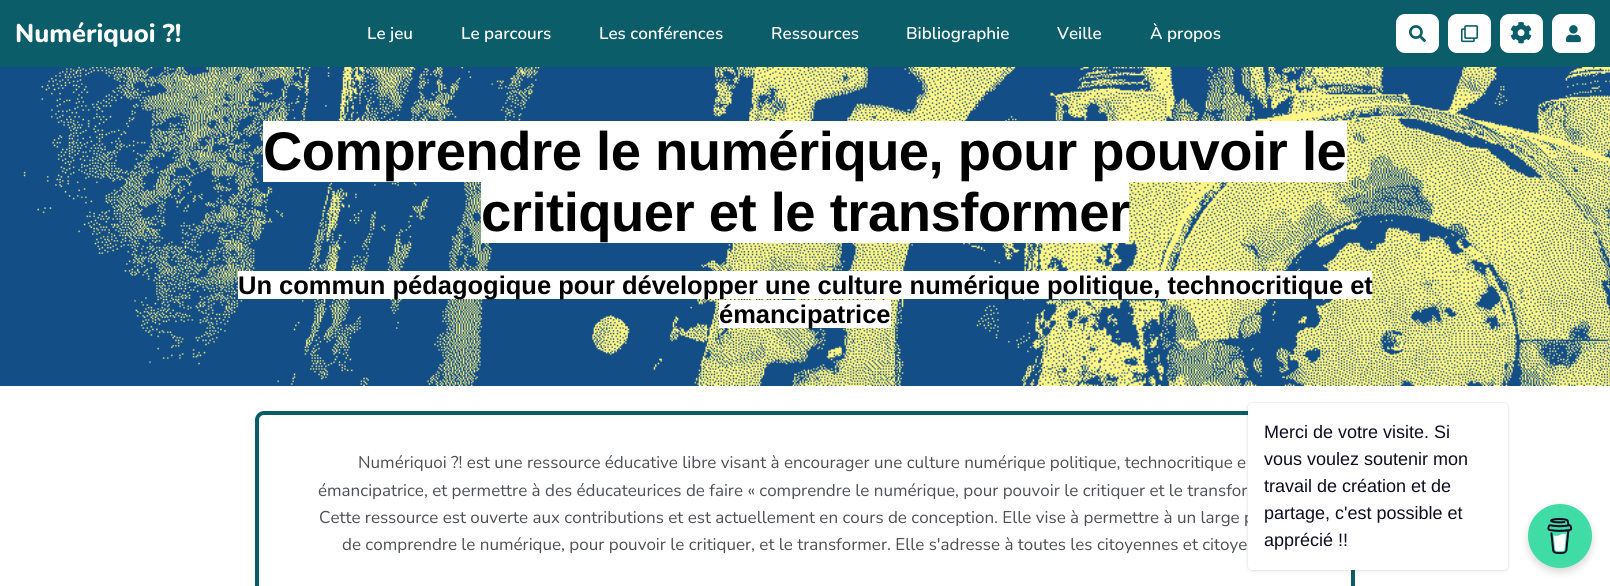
import math
import cairo


def write_spaced(ctx, x, y, s, letter, word):
	ctx.move_to(x, y)
	for ch in s:
		ctx.show_text(ch)
		ctx.rel_move_to(letter + word * (ch == ' '), 0)

def round_path(ctx, x, y, w, h, r):
	ctx.new_sub_path()
	for i, (u, v) in enumerate([(x + w - r, y + h - r), (x + r, y + h - r), (x + r, y + r), (x + w - r, y + r)]):
		ctx.arc(u, v, r, i * math.pi / 2, (i + 1) * math.pi / 2)
	ctx.close_path()

def blur_box(ctx, x, y, w, h, r, blur, alpha):
	ctx.push_group_with_content(cairo.CONTENT_ALPHA)
	ctx.set_operator(cairo.OPERATOR_SOURCE)
	for i in range(15, -16, -2):
		e = blur * i / 6
		if min(w, h) + 2 * e > 0:
			ctx.set_source_rgba(0, 0, 0, alpha * math.erfc((i - 1) / 8.5) / 2)
			round_path(ctx, x - e, y - e, w + 2 * e, h + 2 * e, max(0, min(r + e + blur * .6, min(w, h) / 2 + e)))
			ctx.fill()
	ctx.mask(ctx.pop_group())

def paste(ctx, path, x, y, w, h):
	ctx.save()
	ctx.set_source_surface(cairo.ImageSurface.create_from_png(path), x, y)
	ctx.rectangle(x, y, w, h)
	ctx.fill()
	ctx.restore()

def draw(ctx):
	ctx.set_source_rgb(1, 1, 1)
	ctx.paint()
	ctx.set_source_rgb(0.047, 0.365, 0.416)
	ctx.rectangle(0, 0, 1610, 67)
	ctx.fill()
	ctx.select_font_face('Nunito ExtraBold')
	ctx.set_font_size(25.5)
	ctx.set_source_rgb(1, 1, 1)
	ctx.move_to(15, 42)
	ctx.show_text('Numériquoi ?!')
	ctx.select_font_face('Nunito SemiBold')
	ctx.set_font_size(17)
	for x, y, s in [
		(367, 39, 'Le jeu'),
		(461, 39, 'Le parcours'),
		(599, 39, 'Les conférences'),
		(771, 39, 'Ressources'),
		(906, 39, 'Bibliographie'),
		(1057, 39, 'Veille'),
		(1150, 39, 'À propos'),
	]:
		ctx.move_to(x, y)
		ctx.show_text(s)
	round_path(ctx, 1396, 14, 43, 39, 9)
	ctx.fill()
	paste(ctx, 'media/1.png', 1409, 25, 17, 18)
	round_path(ctx, 1448, 14, 43, 39, 9)
	ctx.fill()
	paste(ctx, 'media/2.png', 1461, 25, 17, 18)
	round_path(ctx, 1500, 14, 43, 39, 9)
	ctx.fill()
	paste(ctx, 'media/3.png', 1510, 22, 22, 22)
	round_path(ctx, 1552, 14, 43, 39, 9)
	ctx.fill()
	paste(ctx, 'media/4.png', 1566, 25, 15, 18)
	paste(ctx, 'media/5.png', 0, 67, 1610, 319)
	ctx.rectangle(263, 121, 1084, 61)
	ctx.fill()
	ctx.select_font_face('Liberation Sans', cairo.FONT_SLANT_NORMAL, cairo.FONT_WEIGHT_BOLD)
	ctx.set_font_size(54.4)
	ctx.set_source_rgb(0, 0, 0)
	write_spaced(ctx, 263, 170, 'Comprendre le numérique, pour pouvoir le', -0.5, 0)
	ctx.set_source_rgb(1, 1, 1)
	ctx.rectangle(481, 182, 648, 61)
	ctx.fill()
	ctx.set_source_rgb(0, 0, 0)
	write_spaced(ctx, 481, 231, 'critiquer et le transformer', -0.5, 0)
	ctx.set_source_rgb(1, 1, 1)
	ctx.rectangle(238, 271, 1134, 28)
	ctx.fill()
	ctx.set_font_size(25.5)
	ctx.set_source_rgb(0, 0, 0)
	ctx.move_to(238, 294)
	ctx.show_text('Un commun pédagogique pour développer une culture numérique politique, technocritique et')
	ctx.set_source_rgb(1, 1, 1)
	ctx.rectangle(719, 300, 172, 28)
	ctx.fill()
	ctx.set_source_rgb(0, 0, 0)
	ctx.move_to(719, 323)
	ctx.show_text('émancipatrice')
	round_path(ctx, 257, 413, 1096, 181, 7)
	ctx.set_source_rgb(0.047, 0.365, 0.416)
	ctx.set_line_width(4)
	ctx.stroke()
	ctx.select_font_face('Nunito')
	ctx.set_font_size(17)
	ctx.set_source_rgb(0.306, 0.314, 0.337)
	for x, y, s in [
		(358, 468, 'Numériquoi ?! est une ressource éducative libre visant à encourager une culture numérique politique, technocritique e'),
		(318, 496, 'émancipatrice, et permettre à des éducateurices de faire « comprendre le numérique, pour pouvoir le critiquer et le transfor'),
		(319, 523, 'Cette ressource est ouverte aux contributions et est actuellement en cours de conception. Elle vise à permettre à un large p'),
		(342, 550, 'de comprendre le numérique, pour pouvoir le critiquer, et le transformer. Elle s\'adresse à toutes les citoyennes et citoye'),
	]:
		ctx.move_to(x, y)
		ctx.show_text(s)
	ctx.set_source_rgb(0, 0, 0)
	blur_box(ctx, 1248, 403, 260, 167, 4, 1, 0.15)
	blur_box(ctx, 1248, 405, 260, 167, 4, 2.5, 0.05)
	ctx.set_source_rgb(1, 1, 1)
	round_path(ctx, 1248, 403, 260, 167, 4)
	ctx.fill()
	ctx.select_font_face('Liberation Sans')
	ctx.set_font_size(18)
	ctx.set_source_rgb(0.051, 0.047, 0.133)
	for x, y, s in [
		(1264, 438, 'Merci de votre visite. Si'),
		(1264, 465, 'vous voulez soutenir mon'),
		(1264, 492, 'travail de création et de'),
		(1264, 519, 'partage, c\'est possible et'),
		(1264, 546, 'apprécié !!'),
	]:
		ctx.move_to(x, y)
		ctx.show_text(s)
	ctx.set_source_rgb(0, 0, 0)
	blur_box(ctx, 1528, 508, 64, 64, 32, 4, 0.15)
	ctx.set_source_rgb(0.251, 0.863, 0.647)
	ctx.arc(1560, 536, 32, 0, 2 * math.pi)
	ctx.fill()
	paste(ctx, 'media/6.png', 1547, 518, 26, 36)


surface = cairo.ImageSurface(cairo.FORMAT_RGB24, 1610, 586)
ctx = cairo.Context(surface)
options = cairo.FontOptions()
options.set_hint_metrics(cairo.HINT_METRICS_OFF)
options.set_hint_style(cairo.HINT_STYLE_NONE)
ctx.set_font_options(options)
ctx.set_miter_limit(4)
draw(ctx)
surface.write_to_png('image.png')
